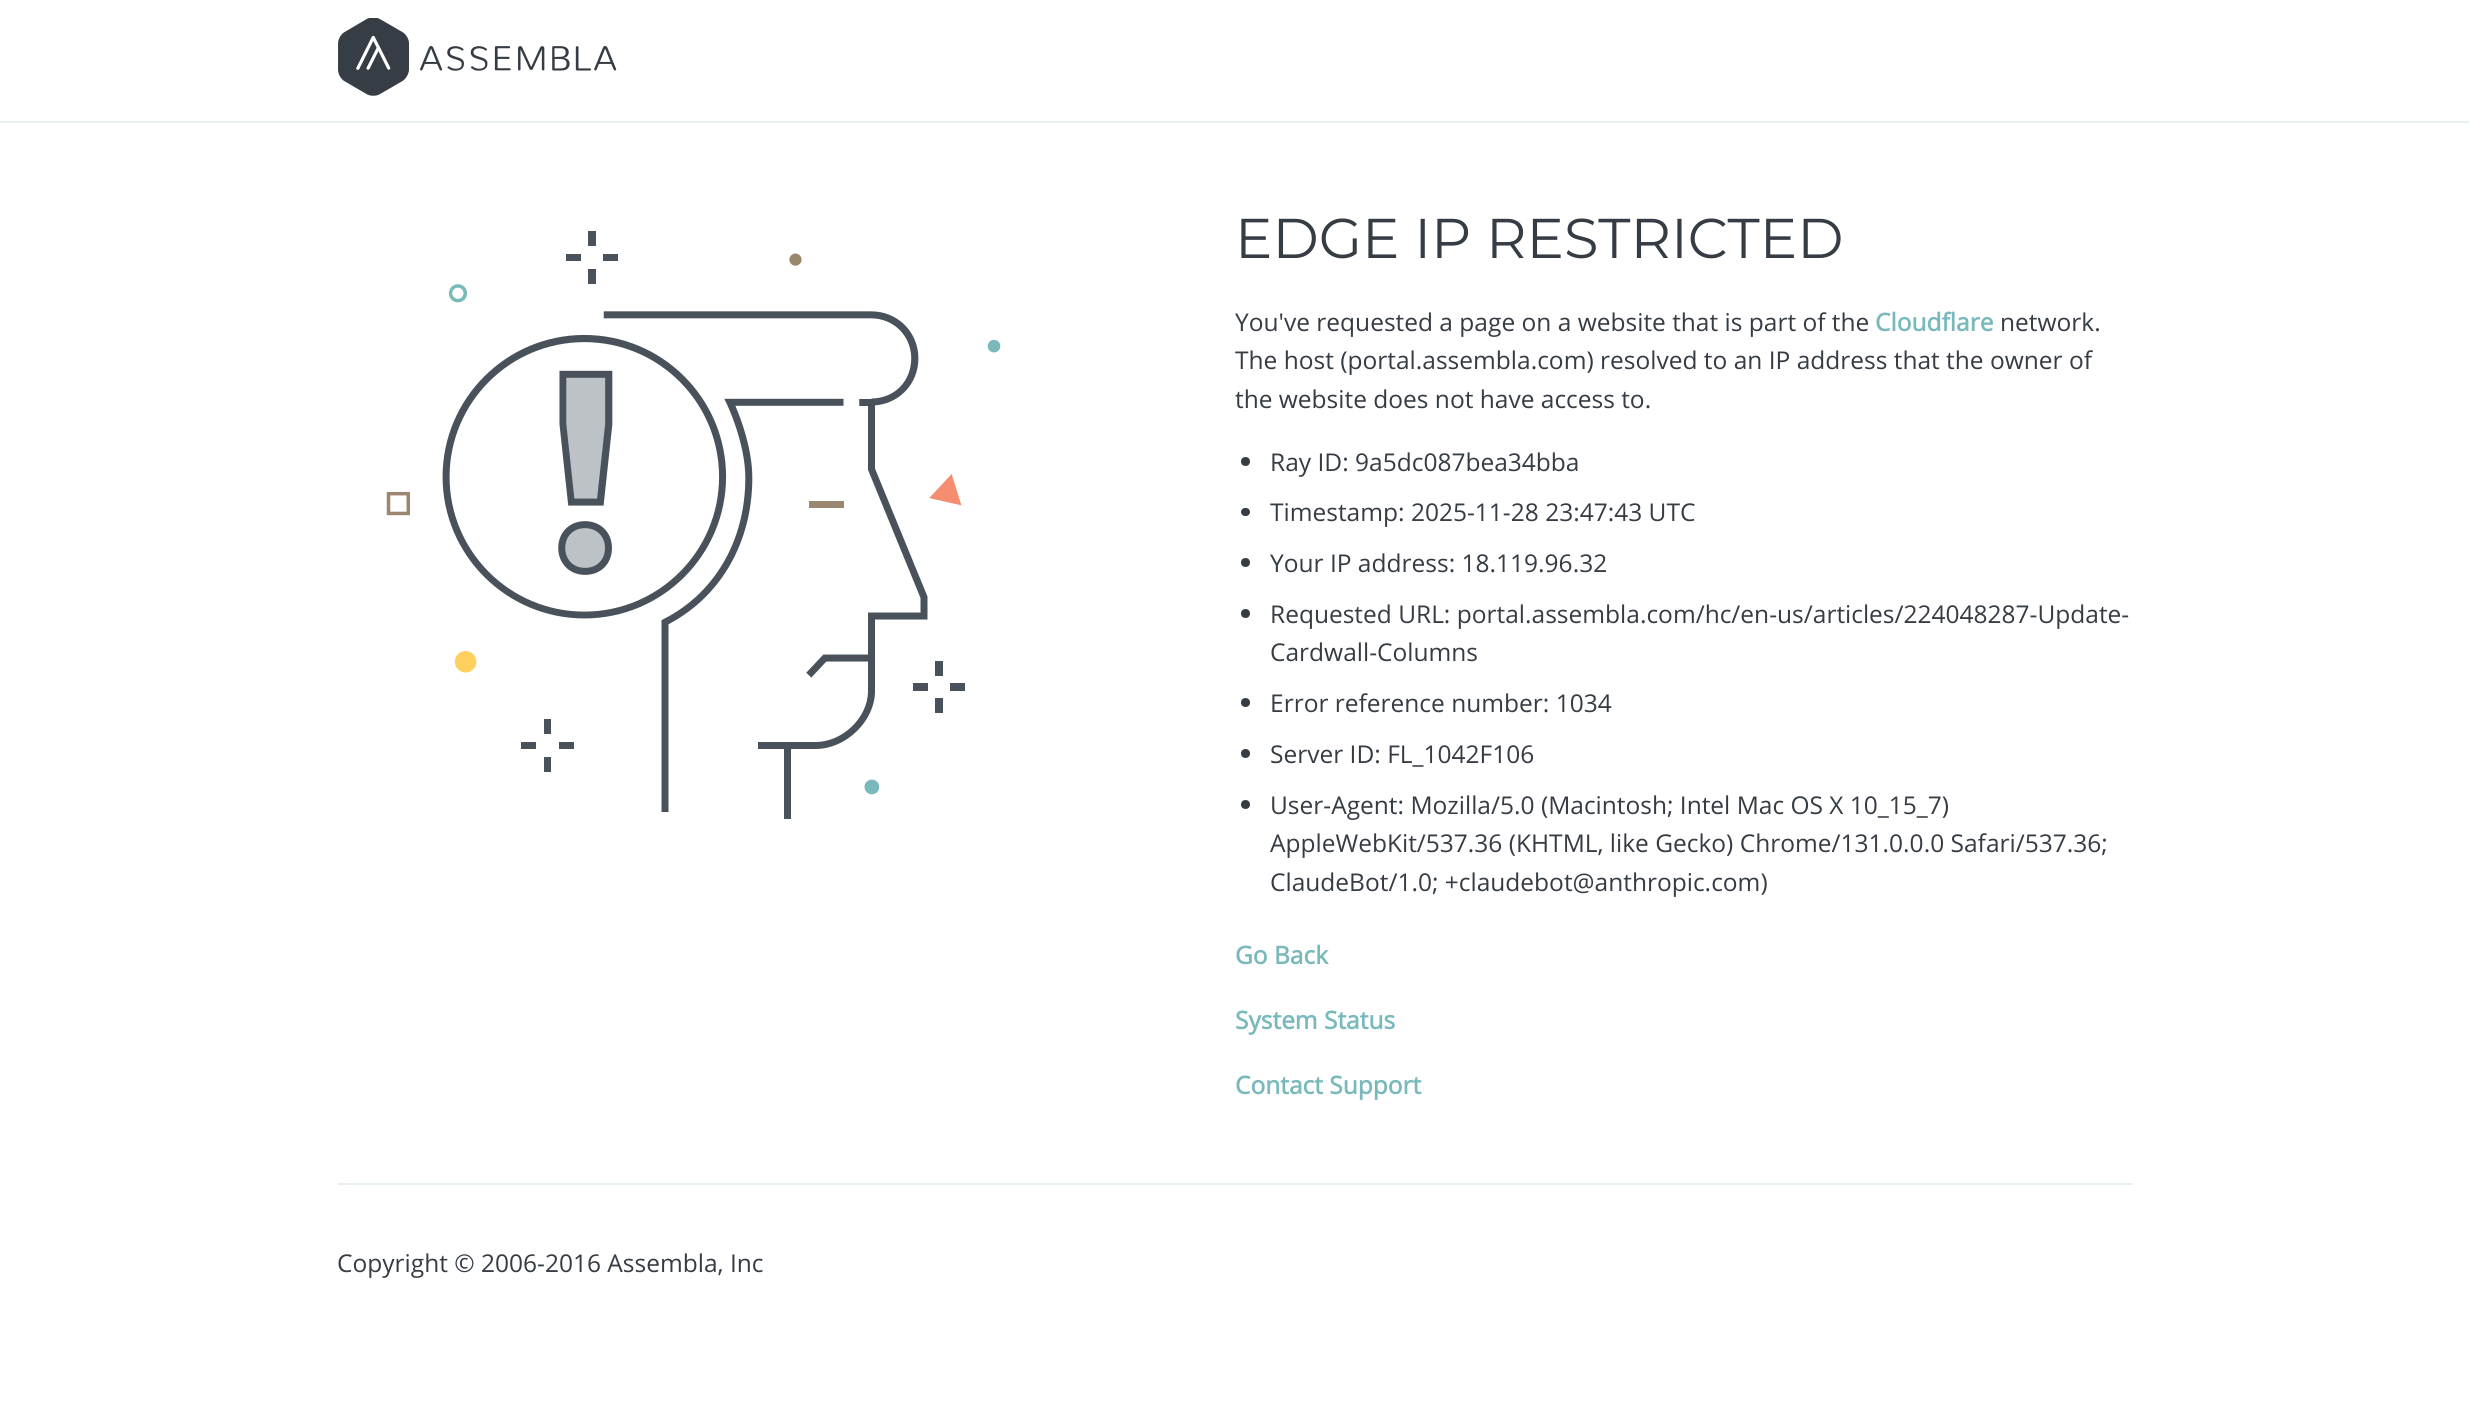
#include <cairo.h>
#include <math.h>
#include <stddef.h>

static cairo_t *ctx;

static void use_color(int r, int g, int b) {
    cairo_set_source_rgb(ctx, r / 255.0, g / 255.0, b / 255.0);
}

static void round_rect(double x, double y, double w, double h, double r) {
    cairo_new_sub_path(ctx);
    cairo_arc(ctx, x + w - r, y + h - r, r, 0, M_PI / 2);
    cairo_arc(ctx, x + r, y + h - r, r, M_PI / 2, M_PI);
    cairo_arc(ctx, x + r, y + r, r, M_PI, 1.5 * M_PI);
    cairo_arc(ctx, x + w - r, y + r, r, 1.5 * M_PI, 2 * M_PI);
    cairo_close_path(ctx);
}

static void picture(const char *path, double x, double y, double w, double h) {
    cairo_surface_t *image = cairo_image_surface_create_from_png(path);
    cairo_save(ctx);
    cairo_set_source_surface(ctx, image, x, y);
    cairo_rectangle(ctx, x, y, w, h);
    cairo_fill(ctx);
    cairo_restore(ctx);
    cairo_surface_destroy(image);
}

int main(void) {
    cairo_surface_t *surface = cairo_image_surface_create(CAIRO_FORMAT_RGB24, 2469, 1422);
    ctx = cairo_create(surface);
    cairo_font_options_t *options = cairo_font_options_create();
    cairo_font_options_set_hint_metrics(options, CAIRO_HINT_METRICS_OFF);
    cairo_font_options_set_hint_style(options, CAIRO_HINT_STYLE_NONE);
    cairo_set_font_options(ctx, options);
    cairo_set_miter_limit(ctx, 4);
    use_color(255, 255, 255);
    cairo_paint(ctx);
    use_color(232, 240, 242);
    cairo_rectangle(ctx, 0, 121, 2469, 2);
    cairo_fill(ctx);
    picture("img1.png", 338, 18, 279, 78);
    picture("img2.png", 386, 231, 615, 588);
    cairo_select_font_face(ctx, "Montserrat", CAIRO_FONT_SLANT_NORMAL, CAIRO_FONT_WEIGHT_NORMAL);
    cairo_set_font_size(ctx, 56);
    use_color(54, 60, 68);
    cairo_move_to(ctx, 1235, 258);
    cairo_show_text(ctx, "EDGE IP RESTRICTED");
    cairo_select_font_face(ctx, "Open Sans", CAIRO_FONT_SLANT_NORMAL, CAIRO_FONT_WEIGHT_NORMAL);
    cairo_set_font_size(ctx, 24.5);
    cairo_move_to(ctx, 1235, 331);
    cairo_show_text(ctx, "You've requested a page on a website that is part of the");
    cairo_select_font_face(ctx, "Open Sans", CAIRO_FONT_SLANT_NORMAL, CAIRO_FONT_WEIGHT_BOLD);
    use_color(121, 185, 188);
    cairo_move_to(ctx, 1875, 331);
    cairo_show_text(ctx, "Cloudflare");
    cairo_select_font_face(ctx, "Open Sans", CAIRO_FONT_SLANT_NORMAL, CAIRO_FONT_WEIGHT_NORMAL);
    use_color(54, 60, 68);
    cairo_move_to(ctx, 2000, 331);
    cairo_show_text(ctx, "network.");
    cairo_move_to(ctx, 1235, 369);
    cairo_show_text(ctx, "The host (portal.assembla.com) resolved to an IP address that the owner of");
    cairo_move_to(ctx, 1235, 408);
    cairo_show_text(ctx, "the website does not have access to.");
    cairo_new_path(ctx);
    cairo_arc(ctx, 1245.5, 461.5, 4.5, 0, 2 * M_PI);
    cairo_fill(ctx);
    cairo_move_to(ctx, 1270, 471);
    cairo_show_text(ctx, "Ray ID: 9a5dc087bea34bba");
    round_rect(1241, 508, 9, 8, 4);
    cairo_fill(ctx);
    cairo_move_to(ctx, 1270, 521);
    cairo_show_text(ctx, "Timestamp: 2025-11-28 23:47:43 UTC");
    cairo_new_path(ctx);
    cairo_arc(ctx, 1245.5, 562.5, 4.5, 0, 2 * M_PI);
    cairo_fill(ctx);
    cairo_move_to(ctx, 1270, 572);
    cairo_show_text(ctx, "Your IP address: 18.119.96.32");
    cairo_new_path(ctx);
    cairo_arc(ctx, 1245.5, 613.5, 4.5, 0, 2 * M_PI);
    cairo_fill(ctx);
    cairo_move_to(ctx, 1270, 623);
    cairo_show_text(ctx, "Requested URL: portal.assembla.com/hc/en-us/articles/224048287-Update-");
    cairo_move_to(ctx, 1270, 661);
    cairo_show_text(ctx, "Cardwall-Columns");
    cairo_new_path(ctx);
    cairo_arc(ctx, 1245.5, 702.5, 4.5, 0, 2 * M_PI);
    cairo_fill(ctx);
    cairo_move_to(ctx, 1270, 712);
    cairo_show_text(ctx, "Error reference number: 1034");
    cairo_new_path(ctx);
    cairo_arc(ctx, 1245.5, 753.5, 4.5, 0, 2 * M_PI);
    cairo_fill(ctx);
    cairo_move_to(ctx, 1270, 763);
    cairo_show_text(ctx, "Server ID: FL_1042F106");
    cairo_new_path(ctx);
    cairo_arc(ctx, 1245.5, 804.5, 4.5, 0, 2 * M_PI);
    cairo_fill(ctx);
    cairo_move_to(ctx, 1270, 814);
    cairo_show_text(ctx, "User-Agent: Mozilla/5.0 (Macintosh; Intel Mac OS X 10_15_7)");
    cairo_move_to(ctx, 1270, 852);
    cairo_show_text(ctx, "AppleWebKit/537.36 (KHTML, like Gecko) Chrome/131.0.0.0 Safari/537.36;");
    cairo_move_to(ctx, 1270, 891);
    cairo_show_text(ctx, "ClaudeBot/1.0; +claudebot@anthropic.com)");
    cairo_select_font_face(ctx, "Open Sans", CAIRO_FONT_SLANT_NORMAL, CAIRO_FONT_WEIGHT_BOLD);
    use_color(121, 185, 188);
    cairo_move_to(ctx, 1235, 964);
    cairo_show_text(ctx, "Go Back");
    cairo_move_to(ctx, 1235, 1029);
    cairo_show_text(ctx, "System Status");
    cairo_move_to(ctx, 1235, 1094);
    cairo_show_text(ctx, "Contact Support");
    use_color(232, 240, 242);
    cairo_rectangle(ctx, 338, 1183, 1795, 2);
    cairo_fill(ctx);
    cairo_select_font_face(ctx, "Open Sans", CAIRO_FONT_SLANT_NORMAL, CAIRO_FONT_WEIGHT_NORMAL);
    use_color(54, 60, 68);
    cairo_move_to(ctx, 337, 1272);
    cairo_show_text(ctx, "Copyright © 2006-2016 Assembla, Inc");
    cairo_surface_write_to_png(surface, "result.png");
    cairo_font_options_destroy(options);
    cairo_destroy(ctx);
    cairo_surface_destroy(surface);
    return 0;
}
